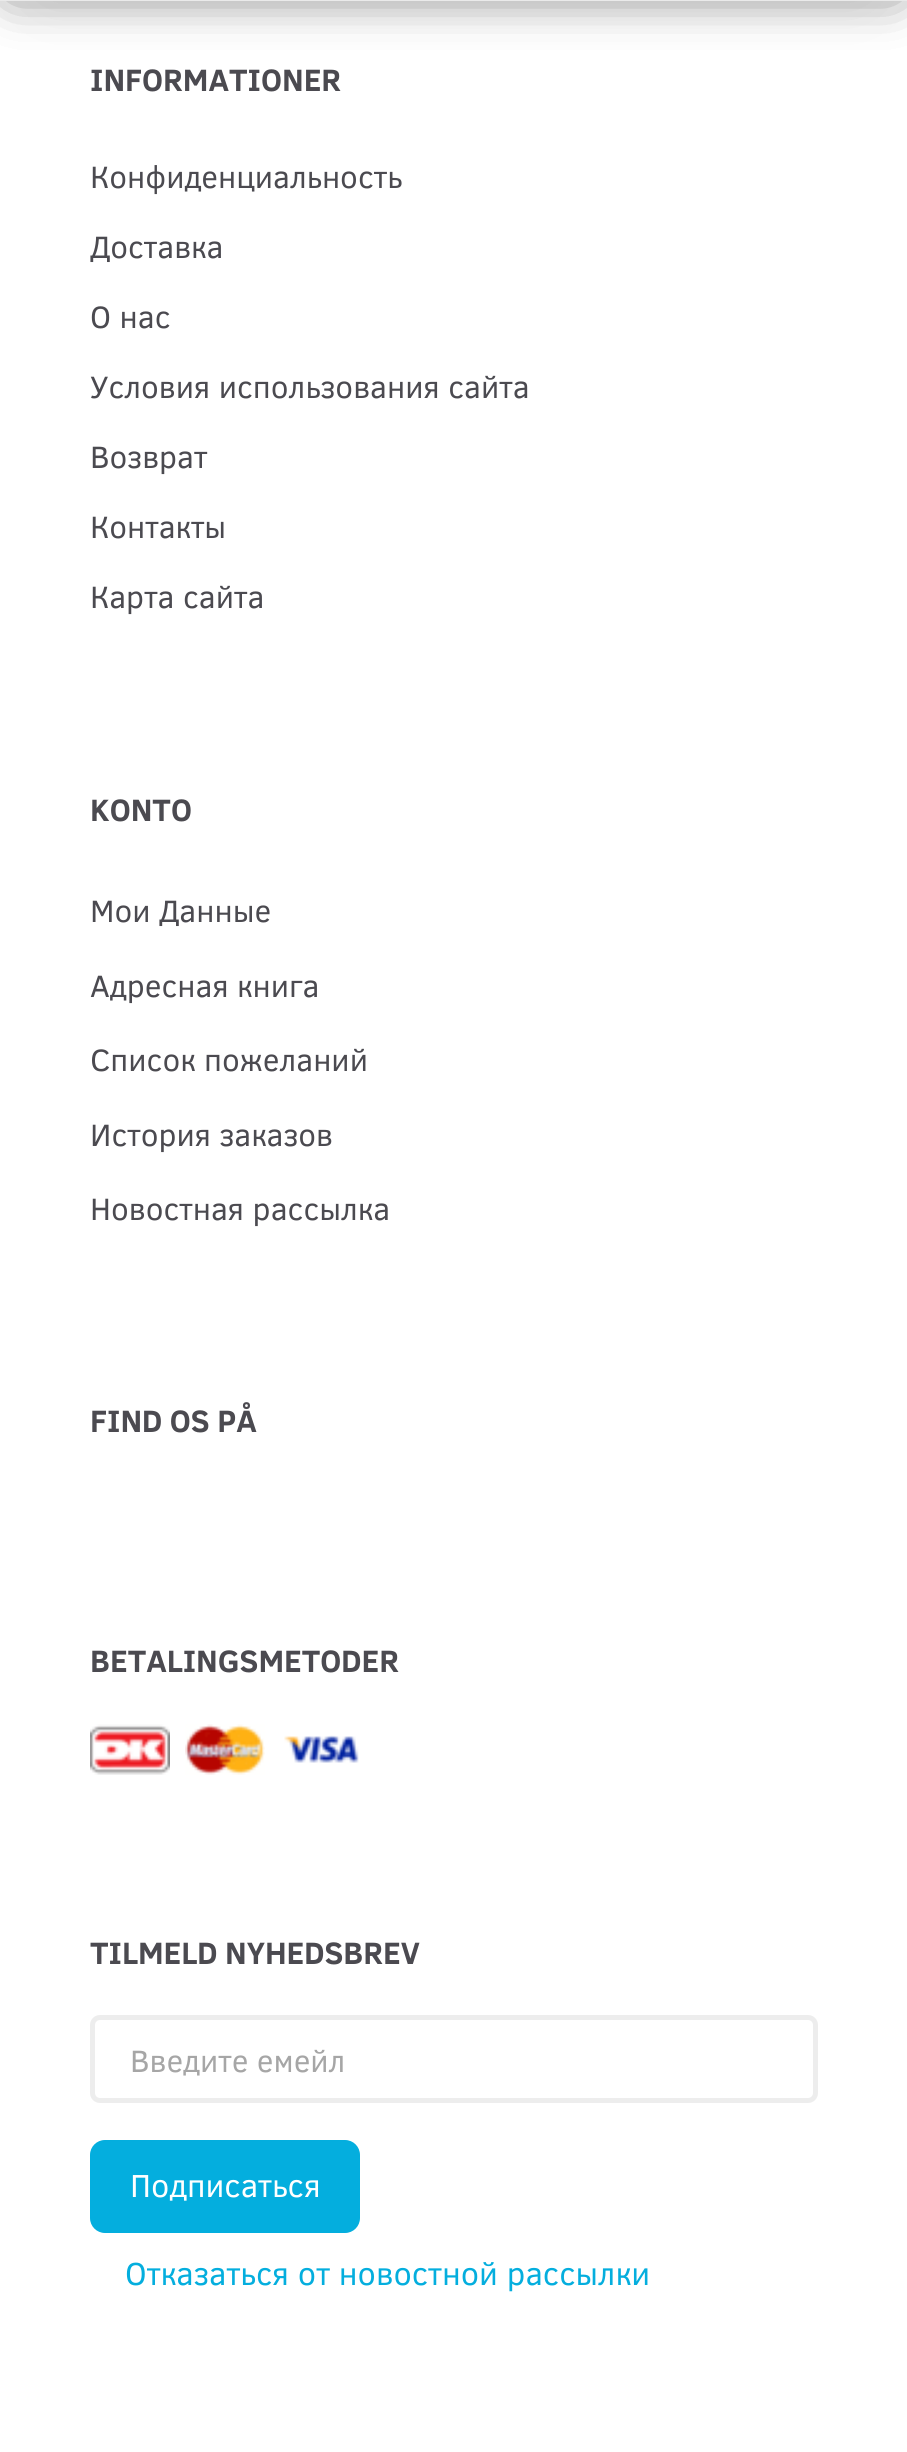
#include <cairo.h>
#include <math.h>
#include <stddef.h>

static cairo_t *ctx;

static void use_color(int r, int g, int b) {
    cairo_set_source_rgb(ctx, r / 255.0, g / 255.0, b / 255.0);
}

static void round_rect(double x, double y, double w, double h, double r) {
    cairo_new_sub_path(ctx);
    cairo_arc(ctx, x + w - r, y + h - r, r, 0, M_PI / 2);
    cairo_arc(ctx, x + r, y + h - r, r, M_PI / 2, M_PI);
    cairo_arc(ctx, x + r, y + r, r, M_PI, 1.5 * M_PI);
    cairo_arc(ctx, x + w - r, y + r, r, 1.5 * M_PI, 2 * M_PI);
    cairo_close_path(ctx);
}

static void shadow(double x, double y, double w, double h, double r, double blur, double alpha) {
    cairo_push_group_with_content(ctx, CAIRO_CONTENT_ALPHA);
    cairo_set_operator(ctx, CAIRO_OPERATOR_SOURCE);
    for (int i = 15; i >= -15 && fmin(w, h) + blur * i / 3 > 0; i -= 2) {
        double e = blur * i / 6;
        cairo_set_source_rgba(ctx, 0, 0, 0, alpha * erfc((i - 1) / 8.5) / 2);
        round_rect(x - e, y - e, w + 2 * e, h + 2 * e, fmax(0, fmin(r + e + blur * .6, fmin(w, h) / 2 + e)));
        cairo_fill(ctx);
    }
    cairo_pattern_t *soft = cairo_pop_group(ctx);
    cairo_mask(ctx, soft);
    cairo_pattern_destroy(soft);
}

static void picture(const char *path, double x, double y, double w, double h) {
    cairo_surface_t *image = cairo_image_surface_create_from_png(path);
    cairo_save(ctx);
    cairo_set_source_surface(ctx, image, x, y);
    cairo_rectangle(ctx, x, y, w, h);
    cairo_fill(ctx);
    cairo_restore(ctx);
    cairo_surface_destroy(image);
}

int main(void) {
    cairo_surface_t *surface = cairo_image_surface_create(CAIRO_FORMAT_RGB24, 907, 2452);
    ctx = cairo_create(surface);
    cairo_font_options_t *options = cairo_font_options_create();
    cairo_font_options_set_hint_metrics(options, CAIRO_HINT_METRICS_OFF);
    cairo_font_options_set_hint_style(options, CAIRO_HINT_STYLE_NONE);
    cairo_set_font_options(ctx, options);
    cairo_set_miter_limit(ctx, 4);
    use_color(255, 255, 255);
    cairo_paint(ctx);
    use_color(148, 148, 148);
    shadow(13, -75, 882, 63, 0, 25, 1);
    shadow(13, -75, 882, 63, 0, 25, 1);
    use_color(184, 184, 184);
    shadow(50, -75, 808, 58, 0, 25, 1);
    use_color(234, 234, 234);
    cairo_rectangle(ctx, 0, 0, 907, 1);
    cairo_fill(ctx);
    cairo_select_font_face(ctx, "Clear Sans", CAIRO_FONT_SLANT_NORMAL, CAIRO_FONT_WEIGHT_BOLD);
    cairo_set_font_size(ctx, 31.5);
    use_color(75, 74, 80);
    cairo_move_to(ctx, 90, 91);
    cairo_show_text(ctx, "INFORMATIONER");
    cairo_select_font_face(ctx, "Clear Sans", CAIRO_FONT_SLANT_NORMAL, CAIRO_FONT_WEIGHT_NORMAL);
    cairo_move_to(ctx, 90, 188);
    cairo_show_text(ctx, "Конфиденциальность");
    cairo_move_to(ctx, 90, 258);
    cairo_show_text(ctx, "Доставка");
    cairo_move_to(ctx, 90, 328);
    cairo_show_text(ctx, "О нас");
    cairo_move_to(ctx, 90, 398);
    cairo_show_text(ctx, "Условия использования сайта");
    cairo_move_to(ctx, 90, 468);
    cairo_show_text(ctx, "Возврат");
    cairo_move_to(ctx, 90, 538);
    cairo_show_text(ctx, "Контакты");
    cairo_move_to(ctx, 90, 608);
    cairo_show_text(ctx, "Карта сайта");
    cairo_select_font_face(ctx, "Clear Sans", CAIRO_FONT_SLANT_NORMAL, CAIRO_FONT_WEIGHT_BOLD);
    cairo_move_to(ctx, 90, 821);
    cairo_show_text(ctx, "KONTO");
    cairo_select_font_face(ctx, "Clear Sans", CAIRO_FONT_SLANT_NORMAL, CAIRO_FONT_WEIGHT_NORMAL);
    cairo_move_to(ctx, 90, 922);
    cairo_show_text(ctx, "Мои Данные");
    cairo_move_to(ctx, 90, 997);
    cairo_show_text(ctx, "Адресная книга");
    cairo_move_to(ctx, 90, 1071);
    cairo_show_text(ctx, "Список пожеланий");
    cairo_move_to(ctx, 90, 1146);
    cairo_show_text(ctx, "История заказов");
    cairo_move_to(ctx, 90, 1220);
    cairo_show_text(ctx, "Новостная рассылка");
    cairo_select_font_face(ctx, "Clear Sans", CAIRO_FONT_SLANT_NORMAL, CAIRO_FONT_WEIGHT_BOLD);
    cairo_move_to(ctx, 90, 1432);
    cairo_show_text(ctx, "FIND OS PÅ");
    cairo_move_to(ctx, 90, 1672);
    cairo_show_text(ctx, "BETALINGSMETODER");
    picture("img1.png", 90, 1724, 80, 51);
    picture("img2.png", 185, 1724, 80, 51);
    picture("img3.png", 284, 1735, 75, 28);
    cairo_move_to(ctx, 90, 1964);
    cairo_show_text(ctx, "TILMELD NYHEDSBREV");
    round_rect(92.5, 2017.5, 723, 83, 7.5);
    use_color(237, 237, 237);
    cairo_set_line_width(ctx, 5);
    cairo_stroke(ctx);
    cairo_select_font_face(ctx, "Clear Sans", CAIRO_FONT_SLANT_NORMAL, CAIRO_FONT_WEIGHT_NORMAL);
    use_color(166, 166, 166);
    cairo_move_to(ctx, 130, 2072);
    cairo_show_text(ctx, "Введите емейл");
    use_color(4, 174, 222);
    round_rect(90, 2140, 270, 93, 15);
    cairo_fill(ctx);
    cairo_set_font_size(ctx, 32.5);
    use_color(255, 255, 255);
    cairo_move_to(ctx, 130, 2197);
    cairo_show_text(ctx, "Подписаться");
    use_color(4, 174, 222);
    cairo_move_to(ctx, 125, 2285);
    cairo_show_text(ctx, "Отказаться от новостной рассылки");
    cairo_surface_write_to_png(surface, "result.png");
    cairo_font_options_destroy(options);
    cairo_destroy(ctx);
    cairo_surface_destroy(surface);
    return 0;
}
